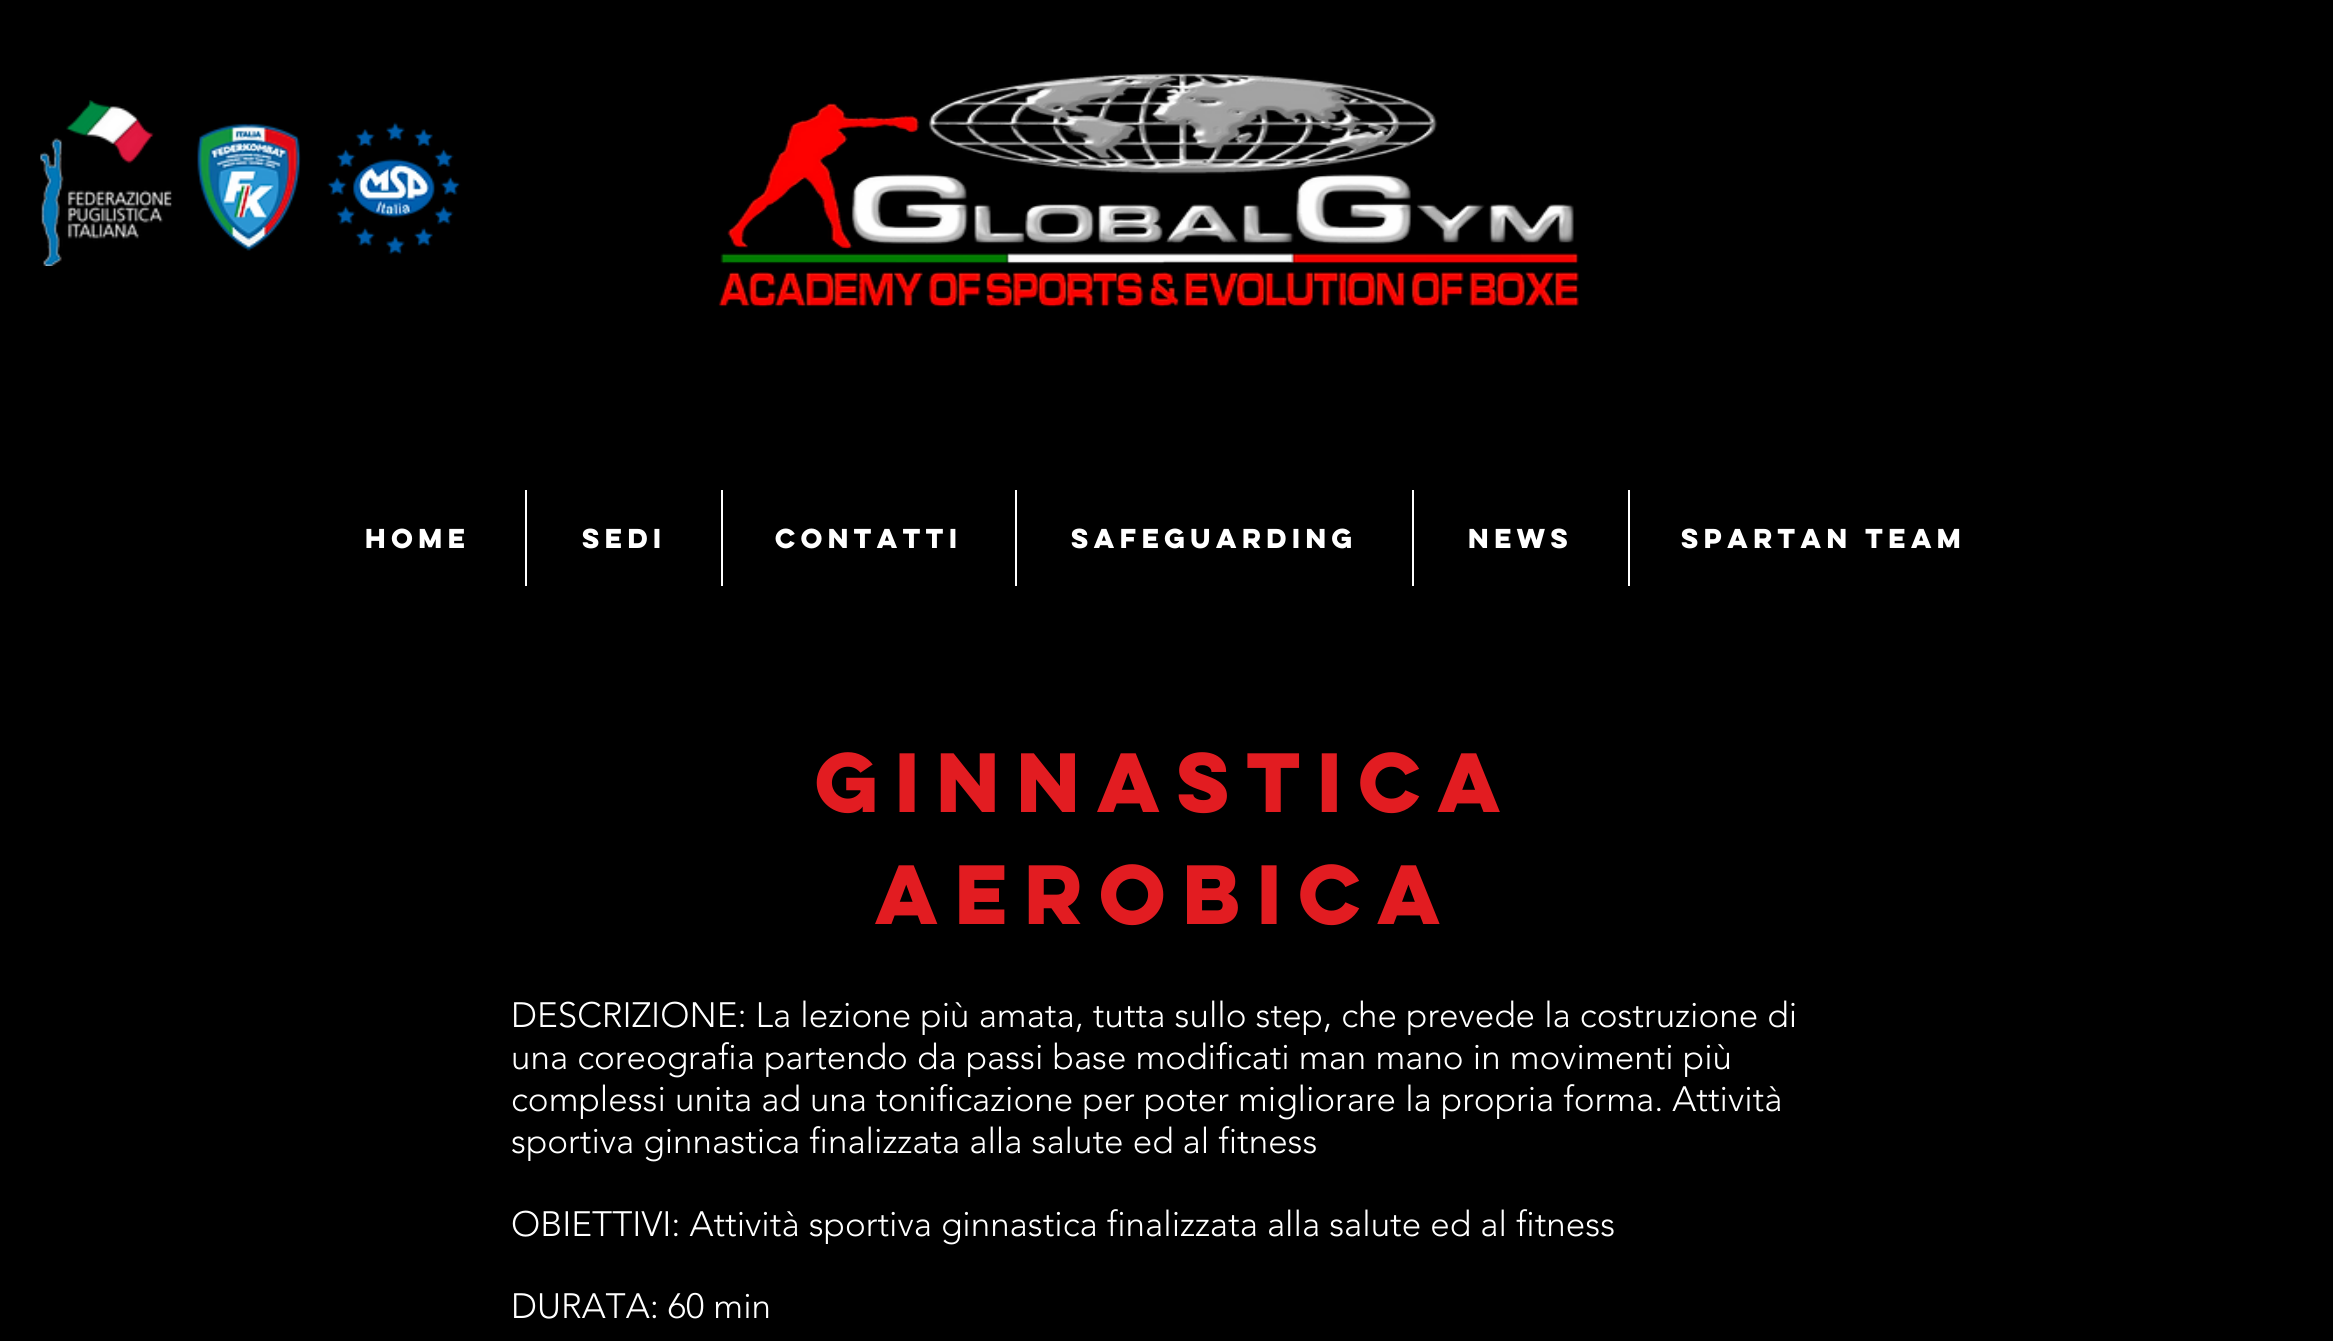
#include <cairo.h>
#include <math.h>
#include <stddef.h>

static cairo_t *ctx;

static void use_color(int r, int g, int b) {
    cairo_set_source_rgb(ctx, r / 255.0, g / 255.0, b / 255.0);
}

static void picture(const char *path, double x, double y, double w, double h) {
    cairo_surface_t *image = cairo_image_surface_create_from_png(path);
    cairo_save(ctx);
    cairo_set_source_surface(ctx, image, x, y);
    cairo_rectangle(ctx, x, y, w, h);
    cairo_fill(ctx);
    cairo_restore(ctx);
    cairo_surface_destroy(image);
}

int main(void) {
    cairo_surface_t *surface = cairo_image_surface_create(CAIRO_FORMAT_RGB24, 2333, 1341);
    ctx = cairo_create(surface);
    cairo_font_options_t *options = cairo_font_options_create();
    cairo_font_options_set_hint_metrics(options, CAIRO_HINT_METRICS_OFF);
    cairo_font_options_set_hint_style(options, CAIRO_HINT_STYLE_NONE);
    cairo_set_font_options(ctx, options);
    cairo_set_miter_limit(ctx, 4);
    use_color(0, 0, 0);
    cairo_paint(ctx);
    picture("img1.png", 40, 100, 132, 166);
    picture("img2.png", 197, 123, 104, 128);
    picture("img3.png", 327, 122, 134, 133);
    picture("img4.png", 718, 72, 861, 235);
    cairo_select_font_face(ctx, "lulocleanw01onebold", CAIRO_FONT_SLANT_NORMAL, CAIRO_FONT_WEIGHT_BOLD);
    cairo_set_font_size(ctx, 24.5);
    use_color(255, 255, 255);
    cairo_move_to(ctx, 365, 548);
    cairo_show_text(ctx, "HOME");
    cairo_rectangle(ctx, 525, 490, 2, 96);
    cairo_fill(ctx);
    cairo_move_to(ctx, 582, 548);
    cairo_show_text(ctx, "SEDI");
    cairo_rectangle(ctx, 721, 490, 2, 96);
    cairo_fill(ctx);
    cairo_move_to(ctx, 775, 548);
    cairo_show_text(ctx, "CONTATTI");
    cairo_rectangle(ctx, 1015, 490, 2, 96);
    cairo_fill(ctx);
    cairo_move_to(ctx, 1071, 548);
    cairo_show_text(ctx, "SAFEGUARDING");
    cairo_rectangle(ctx, 1412, 490, 2, 96);
    cairo_fill(ctx);
    cairo_move_to(ctx, 1468, 548);
    cairo_show_text(ctx, "News");
    cairo_rectangle(ctx, 1628, 490, 2, 96);
    cairo_fill(ctx);
    cairo_move_to(ctx, 1681, 548);
    cairo_show_text(ctx, "Spartan Team");
    cairo_set_font_size(ctx, 75.25);
    use_color(226, 28, 33);
    cairo_move_to(ctx, 815, 812);
    cairo_show_text(ctx, "GINNASTICA");
    cairo_move_to(ctx, 875, 924);
    cairo_show_text(ctx, "AEROBICA");
    cairo_select_font_face(ctx, "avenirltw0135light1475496 Light", CAIRO_FONT_SLANT_NORMAL, CAIRO_FONT_WEIGHT_NORMAL);
    cairo_set_font_size(ctx, 35);
    use_color(255, 255, 255);
    cairo_move_to(ctx, 511, 1027);
    cairo_show_text(ctx, "DESCRIZIONE: La lezione più amata, tutta sullo step, che prevede la costruzione di");
    cairo_move_to(ctx, 511, 1069);
    cairo_show_text(ctx, "una coreografia partendo da passi base modificati man mano in movimenti più");
    cairo_move_to(ctx, 511, 1111);
    cairo_show_text(ctx, "complessi unita ad una tonificazione per poter migliorare la propria forma. Attività");
    cairo_move_to(ctx, 511, 1153);
    cairo_show_text(ctx, "sportiva ginnastica finalizzata alla salute ed al fitness");
    cairo_move_to(ctx, 511, 1236);
    cairo_show_text(ctx, "OBIETTIVI: Attività sportiva ginnastica finalizzata alla salute ed al fitness");
    cairo_move_to(ctx, 511, 1318);
    cairo_show_text(ctx, "DURATA: 60 min");
    cairo_surface_write_to_png(surface, "result.png");
    cairo_font_options_destroy(options);
    cairo_destroy(ctx);
    cairo_surface_destroy(surface);
    return 0;
}
